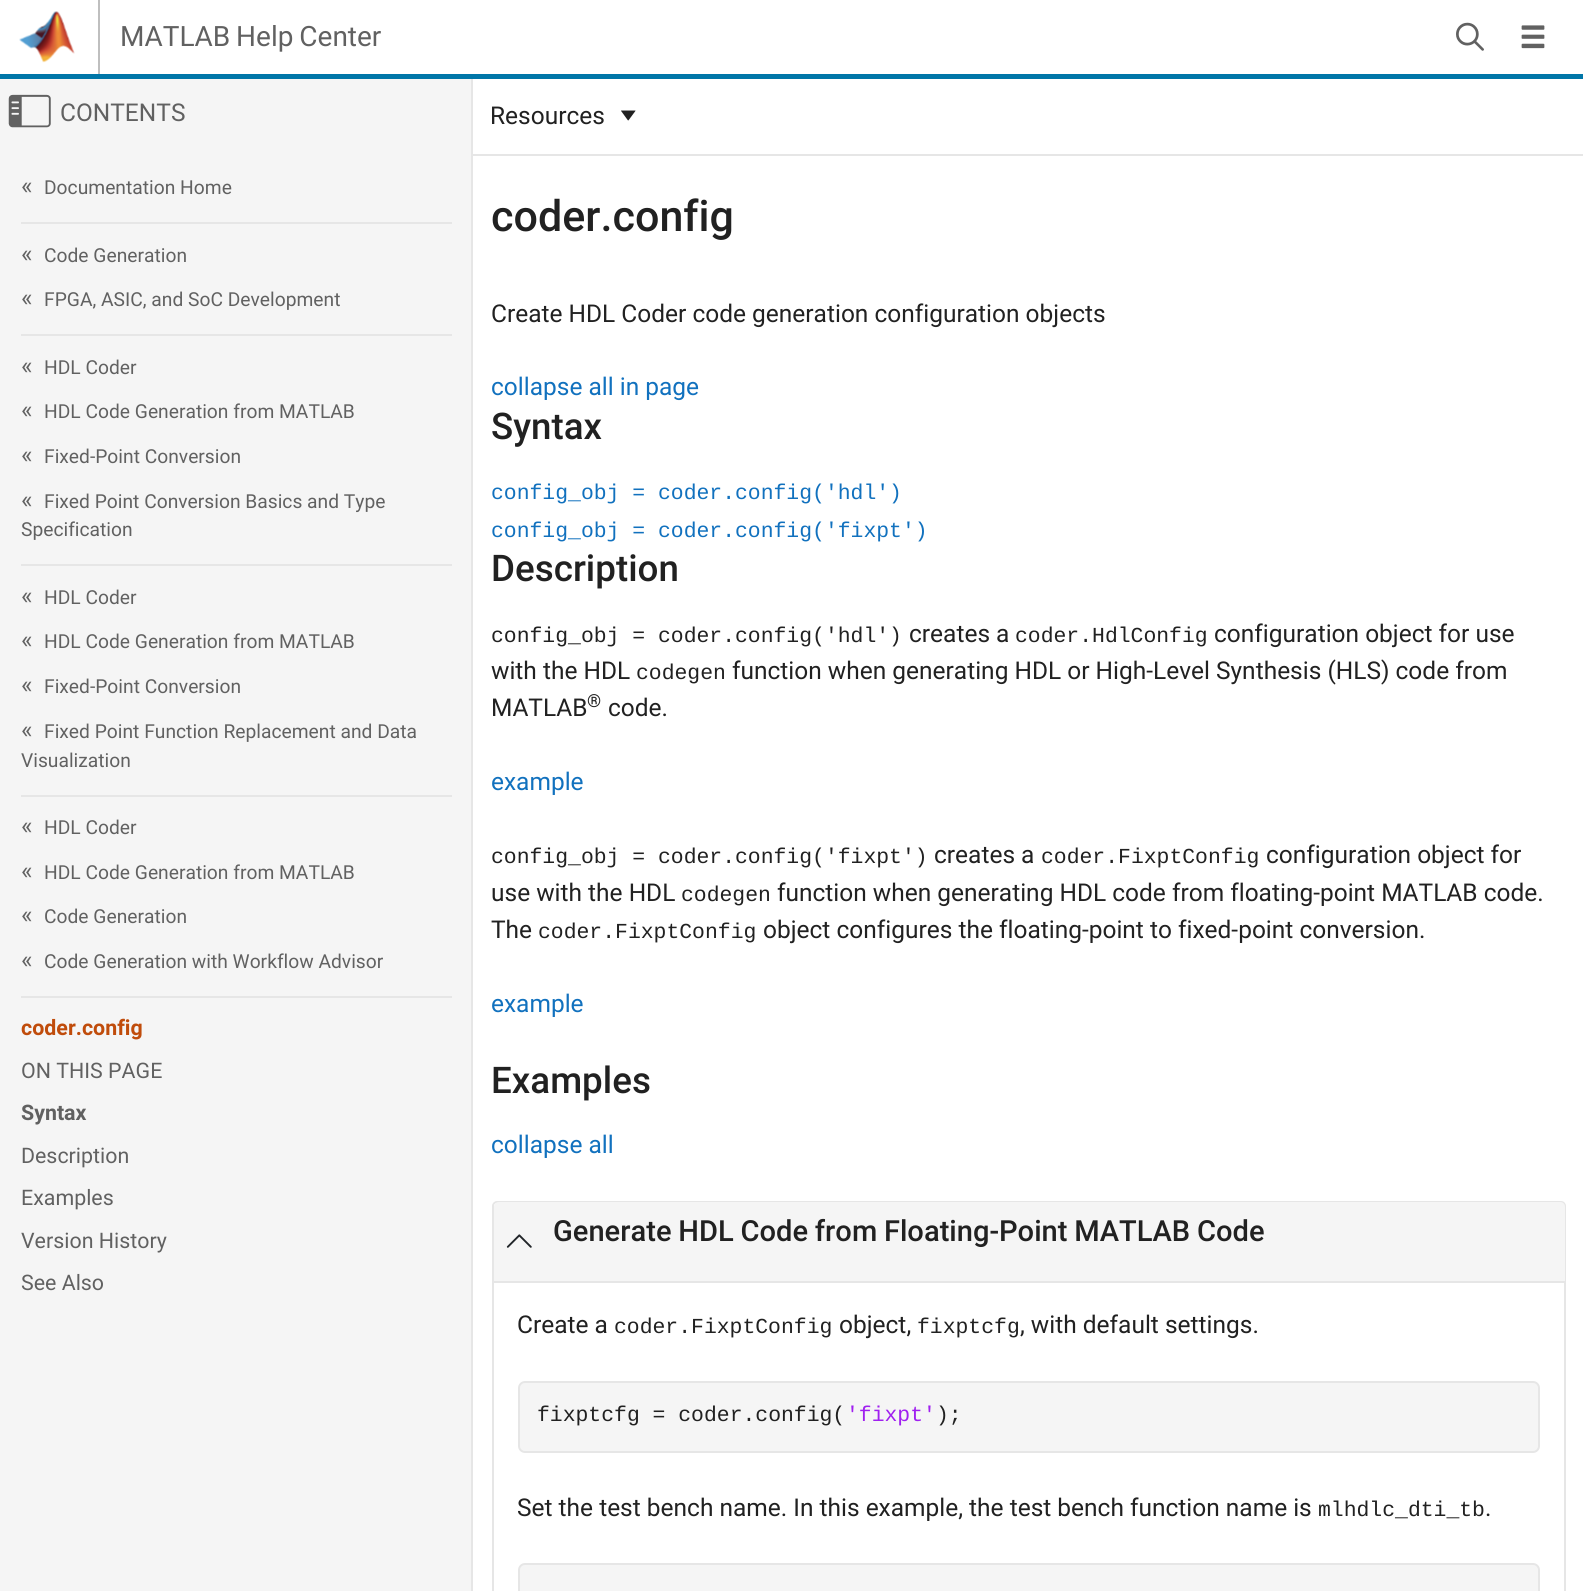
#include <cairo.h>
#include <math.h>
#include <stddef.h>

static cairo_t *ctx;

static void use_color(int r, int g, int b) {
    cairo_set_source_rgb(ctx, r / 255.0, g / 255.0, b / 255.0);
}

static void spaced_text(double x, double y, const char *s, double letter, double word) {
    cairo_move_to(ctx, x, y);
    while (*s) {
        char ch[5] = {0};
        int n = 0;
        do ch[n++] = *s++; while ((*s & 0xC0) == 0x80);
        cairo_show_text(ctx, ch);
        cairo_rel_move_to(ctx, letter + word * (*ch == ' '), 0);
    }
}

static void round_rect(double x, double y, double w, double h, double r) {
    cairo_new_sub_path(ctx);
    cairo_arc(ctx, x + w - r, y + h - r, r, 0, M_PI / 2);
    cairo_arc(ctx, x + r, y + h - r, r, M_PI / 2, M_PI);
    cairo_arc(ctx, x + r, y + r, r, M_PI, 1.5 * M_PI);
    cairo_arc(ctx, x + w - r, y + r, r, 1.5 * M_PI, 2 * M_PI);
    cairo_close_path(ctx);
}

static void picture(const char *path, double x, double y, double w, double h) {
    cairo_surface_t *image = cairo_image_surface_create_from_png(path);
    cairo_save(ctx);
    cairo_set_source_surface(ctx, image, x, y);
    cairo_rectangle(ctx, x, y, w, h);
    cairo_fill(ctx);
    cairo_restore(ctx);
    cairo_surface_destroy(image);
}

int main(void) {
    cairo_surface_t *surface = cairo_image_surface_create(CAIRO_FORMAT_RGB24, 1583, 1591);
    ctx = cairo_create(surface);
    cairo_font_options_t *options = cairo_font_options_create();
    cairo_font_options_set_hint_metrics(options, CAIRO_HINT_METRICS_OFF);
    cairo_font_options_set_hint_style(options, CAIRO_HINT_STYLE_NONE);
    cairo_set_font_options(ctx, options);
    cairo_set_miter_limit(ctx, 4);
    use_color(245, 245, 245);
    cairo_paint(ctx);
    use_color(255, 255, 255);
    cairo_rectangle(ctx, 0, 0, 1583, 74);
    cairo_fill(ctx);
    use_color(0, 118, 168);
    cairo_rectangle(ctx, 0, 74, 1583, 5);
    cairo_fill(ctx);
    use_color(191, 191, 191);
    cairo_rectangle(ctx, 98, 0, 2, 74);
    cairo_fill(ctx);
    picture("img1.png", 19, 11, 56, 52);
    cairo_select_font_face(ctx, "Roboto", CAIRO_FONT_SLANT_NORMAL, CAIRO_FONT_WEIGHT_NORMAL);
    cairo_set_font_size(ctx, 28);
    use_color(97, 97, 97);
    spaced_text(120, 46, "MATLAB Help Center", 0, -1);
    picture("img2.png", 1456, 22, 28, 29);
    picture("img3.png", 1521, 25, 24, 24);
    use_color(230, 230, 230);
    cairo_rectangle(ctx, 471, 79, 2, 1512);
    cairo_fill(ctx);
    picture("img4.png", 8, 94, 43, 34);
    cairo_set_font_size(ctx, 24.5);
    use_color(97, 97, 97);
    cairo_move_to(ctx, 60, 121);
    cairo_show_text(ctx, "CONTENTS");
    use_color(230, 230, 230);
    cairo_rectangle(ctx, 21, 222, 431, 2);
    cairo_fill(ctx);
    use_color(97, 97, 97);
    cairo_move_to(ctx, 21, 194);
    cairo_show_text(ctx, "«");
    cairo_set_font_size(ctx, 19.25);
    cairo_move_to(ctx, 44, 194);
    cairo_show_text(ctx, "Documentation Home");
    use_color(230, 230, 230);
    cairo_rectangle(ctx, 21, 334, 431, 2);
    cairo_fill(ctx);
    cairo_set_font_size(ctx, 24.5);
    use_color(97, 97, 97);
    cairo_move_to(ctx, 21, 262);
    cairo_show_text(ctx, "«");
    cairo_set_font_size(ctx, 19.25);
    cairo_move_to(ctx, 44, 262);
    cairo_show_text(ctx, "Code Generation");
    cairo_set_font_size(ctx, 24.5);
    cairo_move_to(ctx, 21, 306);
    cairo_show_text(ctx, "«");
    cairo_set_font_size(ctx, 19.25);
    cairo_move_to(ctx, 44, 306);
    cairo_show_text(ctx, "FPGA, ASIC, and SoC Development");
    use_color(230, 230, 230);
    cairo_rectangle(ctx, 21, 564, 431, 2);
    cairo_fill(ctx);
    cairo_set_font_size(ctx, 24.5);
    use_color(97, 97, 97);
    cairo_move_to(ctx, 21, 374);
    cairo_show_text(ctx, "«");
    cairo_set_font_size(ctx, 19.25);
    cairo_move_to(ctx, 44, 374);
    cairo_show_text(ctx, "HDL Coder");
    cairo_set_font_size(ctx, 24.5);
    cairo_move_to(ctx, 21, 418);
    cairo_show_text(ctx, "«");
    cairo_set_font_size(ctx, 19.25);
    cairo_move_to(ctx, 44, 418);
    cairo_show_text(ctx, "HDL Code Generation from MATLAB");
    cairo_set_font_size(ctx, 24.5);
    cairo_move_to(ctx, 21, 463);
    cairo_show_text(ctx, "«");
    cairo_set_font_size(ctx, 19.25);
    cairo_move_to(ctx, 44, 463);
    cairo_show_text(ctx, "Fixed-Point Conversion");
    cairo_set_font_size(ctx, 24.5);
    cairo_move_to(ctx, 21, 508);
    cairo_show_text(ctx, "«");
    cairo_set_font_size(ctx, 19.25);
    cairo_move_to(ctx, 44, 508);
    cairo_show_text(ctx, "Fixed Point Conversion Basics and Type");
    cairo_move_to(ctx, 21, 536);
    cairo_show_text(ctx, "Specification");
    use_color(230, 230, 230);
    cairo_rectangle(ctx, 21, 795, 431, 2);
    cairo_fill(ctx);
    cairo_set_font_size(ctx, 24.5);
    use_color(97, 97, 97);
    cairo_move_to(ctx, 21, 604);
    cairo_show_text(ctx, "«");
    cairo_set_font_size(ctx, 19.25);
    cairo_move_to(ctx, 44, 604);
    cairo_show_text(ctx, "HDL Coder");
    cairo_set_font_size(ctx, 24.5);
    cairo_move_to(ctx, 21, 648);
    cairo_show_text(ctx, "«");
    cairo_set_font_size(ctx, 19.25);
    cairo_move_to(ctx, 44, 648);
    cairo_show_text(ctx, "HDL Code Generation from MATLAB");
    cairo_set_font_size(ctx, 24.5);
    cairo_move_to(ctx, 21, 693);
    cairo_show_text(ctx, "«");
    cairo_set_font_size(ctx, 19.25);
    cairo_move_to(ctx, 44, 693);
    cairo_show_text(ctx, "Fixed-Point Conversion");
    cairo_set_font_size(ctx, 24.5);
    cairo_move_to(ctx, 21, 738);
    cairo_show_text(ctx, "«");
    cairo_set_font_size(ctx, 19.25);
    cairo_move_to(ctx, 44, 738);
    cairo_show_text(ctx, "Fixed Point Function Replacement and Data");
    cairo_move_to(ctx, 21, 767);
    cairo_show_text(ctx, "Visualization");
    use_color(230, 230, 230);
    cairo_rectangle(ctx, 21, 996, 431, 2);
    cairo_fill(ctx);
    cairo_set_font_size(ctx, 24.5);
    use_color(97, 97, 97);
    cairo_move_to(ctx, 21, 834);
    cairo_show_text(ctx, "«");
    cairo_set_font_size(ctx, 19.25);
    cairo_move_to(ctx, 44, 834);
    cairo_show_text(ctx, "HDL Coder");
    cairo_set_font_size(ctx, 24.5);
    cairo_move_to(ctx, 21, 879);
    cairo_show_text(ctx, "«");
    cairo_set_font_size(ctx, 19.25);
    cairo_move_to(ctx, 44, 879);
    cairo_show_text(ctx, "HDL Code Generation from MATLAB");
    cairo_set_font_size(ctx, 24.5);
    cairo_move_to(ctx, 21, 923);
    cairo_show_text(ctx, "«");
    cairo_set_font_size(ctx, 19.25);
    cairo_move_to(ctx, 44, 923);
    cairo_show_text(ctx, "Code Generation");
    cairo_set_font_size(ctx, 24.5);
    cairo_move_to(ctx, 21, 968);
    cairo_show_text(ctx, "«");
    cairo_set_font_size(ctx, 19.25);
    cairo_move_to(ctx, 44, 968);
    cairo_show_text(ctx, "Code Generation with Workflow Advisor");
    cairo_select_font_face(ctx, "Roboto", CAIRO_FONT_SLANT_NORMAL, CAIRO_FONT_WEIGHT_BOLD);
    cairo_set_font_size(ctx, 21.4);
    use_color(192, 76, 11);
    cairo_move_to(ctx, 21, 1035);
    cairo_show_text(ctx, "coder.config");
    cairo_select_font_face(ctx, "Roboto", CAIRO_FONT_SLANT_NORMAL, CAIRO_FONT_WEIGHT_NORMAL);
    use_color(97, 97, 97);
    cairo_move_to(ctx, 21, 1078);
    cairo_show_text(ctx, "ON THIS PAGE");
    cairo_select_font_face(ctx, "Roboto", CAIRO_FONT_SLANT_NORMAL, CAIRO_FONT_WEIGHT_BOLD);
    cairo_move_to(ctx, 21, 1120);
    cairo_show_text(ctx, "Syntax");
    cairo_select_font_face(ctx, "Roboto", CAIRO_FONT_SLANT_NORMAL, CAIRO_FONT_WEIGHT_NORMAL);
    cairo_move_to(ctx, 21, 1163);
    cairo_show_text(ctx, "Description");
    cairo_move_to(ctx, 21, 1205);
    cairo_show_text(ctx, "Examples");
    cairo_move_to(ctx, 21, 1248);
    cairo_show_text(ctx, "Version History");
    cairo_move_to(ctx, 21, 1290);
    cairo_show_text(ctx, "See Also");
    use_color(255, 255, 255);
    cairo_rectangle(ctx, 473, 79, 1110, 75);
    cairo_fill(ctx);
    use_color(230, 230, 230);
    cairo_rectangle(ctx, 473, 154, 1110, 2);
    cairo_fill(ctx);
    cairo_set_font_size(ctx, 24.5);
    use_color(33, 33, 33);
    cairo_move_to(ctx, 490, 124);
    cairo_show_text(ctx, "Resources");
    picture("img5.png", 621, 110, 15, 11);
    use_color(255, 255, 255);
    cairo_rectangle(ctx, 473, 156, 1110, 1435);
    cairo_fill(ctx);
    cairo_select_font_face(ctx, "Roboto Medium", CAIRO_FONT_SLANT_NORMAL, CAIRO_FONT_WEIGHT_NORMAL);
    cairo_set_font_size(ctx, 43);
    use_color(33, 33, 33);
    cairo_move_to(ctx, 491, 231);
    cairo_show_text(ctx, "coder.config");
    cairo_select_font_face(ctx, "Roboto", CAIRO_FONT_SLANT_NORMAL, CAIRO_FONT_WEIGHT_NORMAL);
    cairo_set_font_size(ctx, 24.5);
    cairo_move_to(ctx, 491, 322);
    cairo_show_text(ctx, "Create HDL Coder code generation configuration objects");
    use_color(17, 113, 190);
    cairo_move_to(ctx, 491, 395);
    cairo_show_text(ctx, "collapse all in page");
    cairo_select_font_face(ctx, "Roboto Medium", CAIRO_FONT_SLANT_NORMAL, CAIRO_FONT_WEIGHT_NORMAL);
    cairo_set_font_size(ctx, 36.75);
    use_color(33, 33, 33);
    cairo_move_to(ctx, 491, 439);
    cairo_show_text(ctx, "Syntax");
    cairo_select_font_face(ctx, "Liberation Mono", CAIRO_FONT_SLANT_NORMAL, CAIRO_FONT_WEIGHT_NORMAL);
    cairo_set_font_size(ctx, 21.4);
    use_color(17, 113, 190);
    cairo_move_to(ctx, 491, 499);
    cairo_show_text(ctx, "config_obj = coder.config('hdl')");
    cairo_move_to(ctx, 491, 537);
    cairo_show_text(ctx, "config_obj = coder.config('fixpt')");
    cairo_select_font_face(ctx, "Roboto Medium", CAIRO_FONT_SLANT_NORMAL, CAIRO_FONT_WEIGHT_NORMAL);
    cairo_set_font_size(ctx, 36.75);
    use_color(33, 33, 33);
    cairo_move_to(ctx, 491, 581);
    cairo_show_text(ctx, "Description");
    cairo_select_font_face(ctx, "Liberation Mono", CAIRO_FONT_SLANT_NORMAL, CAIRO_FONT_WEIGHT_NORMAL);
    cairo_set_font_size(ctx, 21.4);
    cairo_move_to(ctx, 491, 642);
    cairo_show_text(ctx, "config_obj = coder.config('hdl')");
    cairo_select_font_face(ctx, "Roboto", CAIRO_FONT_SLANT_NORMAL, CAIRO_FONT_WEIGHT_NORMAL);
    cairo_set_font_size(ctx, 24.5);
    cairo_move_to(ctx, 909, 642);
    cairo_show_text(ctx, "creates a");
    cairo_select_font_face(ctx, "Liberation Mono", CAIRO_FONT_SLANT_NORMAL, CAIRO_FONT_WEIGHT_NORMAL);
    cairo_set_font_size(ctx, 21.4);
    cairo_move_to(ctx, 1015, 642);
    cairo_show_text(ctx, "coder.HdlConfig");
    cairo_select_font_face(ctx, "Roboto", CAIRO_FONT_SLANT_NORMAL, CAIRO_FONT_WEIGHT_NORMAL);
    cairo_set_font_size(ctx, 24.5);
    cairo_move_to(ctx, 1214, 642);
    cairo_show_text(ctx, "configuration object for use");
    cairo_move_to(ctx, 491, 679);
    cairo_show_text(ctx, "with the HDL");
    cairo_select_font_face(ctx, "Liberation Mono", CAIRO_FONT_SLANT_NORMAL, CAIRO_FONT_WEIGHT_NORMAL);
    cairo_set_font_size(ctx, 21.4);
    cairo_move_to(ctx, 636, 679);
    cairo_show_text(ctx, "codegen");
    cairo_select_font_face(ctx, "Roboto", CAIRO_FONT_SLANT_NORMAL, CAIRO_FONT_WEIGHT_NORMAL);
    cairo_set_font_size(ctx, 24.5);
    cairo_move_to(ctx, 732, 679);
    cairo_show_text(ctx, "function when generating HDL or High-Level Synthesis (HLS) code from");
    cairo_move_to(ctx, 491, 716);
    cairo_show_text(ctx, "MATLAB");
    cairo_set_font_size(ctx, 18);
    cairo_move_to(ctx, 587, 707);
    cairo_show_text(ctx, "®");
    cairo_set_font_size(ctx, 24.5);
    cairo_move_to(ctx, 608, 716);
    cairo_show_text(ctx, "code.");
    use_color(17, 113, 190);
    cairo_move_to(ctx, 491, 790);
    cairo_show_text(ctx, "example");
    cairo_select_font_face(ctx, "Liberation Mono", CAIRO_FONT_SLANT_NORMAL, CAIRO_FONT_WEIGHT_NORMAL);
    cairo_set_font_size(ctx, 21.4);
    use_color(33, 33, 33);
    cairo_move_to(ctx, 491, 863);
    cairo_show_text(ctx, "config_obj = coder.config('fixpt')");
    cairo_select_font_face(ctx, "Roboto", CAIRO_FONT_SLANT_NORMAL, CAIRO_FONT_WEIGHT_NORMAL);
    cairo_set_font_size(ctx, 24.5);
    cairo_move_to(ctx, 934, 863);
    cairo_show_text(ctx, "creates a");
    cairo_select_font_face(ctx, "Liberation Mono", CAIRO_FONT_SLANT_NORMAL, CAIRO_FONT_WEIGHT_NORMAL);
    cairo_set_font_size(ctx, 21.4);
    cairo_move_to(ctx, 1041, 863);
    cairo_show_text(ctx, "coder.FixptConfig");
    cairo_select_font_face(ctx, "Roboto", CAIRO_FONT_SLANT_NORMAL, CAIRO_FONT_WEIGHT_NORMAL);
    cairo_set_font_size(ctx, 24.5);
    cairo_move_to(ctx, 1266, 863);
    cairo_show_text(ctx, "configuration object for");
    cairo_move_to(ctx, 491, 901);
    cairo_show_text(ctx, "use with the HDL");
    cairo_select_font_face(ctx, "Liberation Mono", CAIRO_FONT_SLANT_NORMAL, CAIRO_FONT_WEIGHT_NORMAL);
    cairo_set_font_size(ctx, 21.4);
    cairo_move_to(ctx, 681, 901);
    cairo_show_text(ctx, "codegen");
    cairo_select_font_face(ctx, "Roboto", CAIRO_FONT_SLANT_NORMAL, CAIRO_FONT_WEIGHT_NORMAL);
    cairo_set_font_size(ctx, 24.5);
    cairo_move_to(ctx, 777, 901);
    cairo_show_text(ctx, "function when generating HDL code from floating-point MATLAB code.");
    cairo_move_to(ctx, 491, 938);
    cairo_show_text(ctx, "The");
    cairo_select_font_face(ctx, "Liberation Mono", CAIRO_FONT_SLANT_NORMAL, CAIRO_FONT_WEIGHT_NORMAL);
    cairo_set_font_size(ctx, 21.4);
    cairo_move_to(ctx, 538, 938);
    cairo_show_text(ctx, "coder.FixptConfig");
    cairo_select_font_face(ctx, "Roboto", CAIRO_FONT_SLANT_NORMAL, CAIRO_FONT_WEIGHT_NORMAL);
    cairo_set_font_size(ctx, 24.5);
    cairo_move_to(ctx, 763, 938);
    cairo_show_text(ctx, "object configures the floating-point to fixed-point conversion.");
    use_color(17, 113, 190);
    cairo_move_to(ctx, 491, 1012);
    cairo_show_text(ctx, "example");
    cairo_select_font_face(ctx, "Roboto Medium", CAIRO_FONT_SLANT_NORMAL, CAIRO_FONT_WEIGHT_NORMAL);
    cairo_set_font_size(ctx, 36.75);
    use_color(33, 33, 33);
    cairo_move_to(ctx, 491, 1093);
    cairo_show_text(ctx, "Examples");
    cairo_select_font_face(ctx, "Roboto", CAIRO_FONT_SLANT_NORMAL, CAIRO_FONT_WEIGHT_NORMAL);
    cairo_set_font_size(ctx, 24.5);
    use_color(17, 113, 190);
    cairo_move_to(ctx, 491, 1153);
    cairo_show_text(ctx, "collapse all");
    round_rect(493, 1202, 1072, 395, 4);
    use_color(230, 230, 230);
    cairo_stroke(ctx);
    use_color(245, 245, 245);
    cairo_new_path(ctx);
    cairo_move_to(ctx, 499, 1202);
    cairo_line_to(ctx, 1560, 1202);
    cairo_curve_to(ctx, 1563, 1202, 1565, 1204, 1565, 1207);
    cairo_line_to(ctx, 1565, 1283);
    cairo_line_to(ctx, 494, 1283);
    cairo_line_to(ctx, 494, 1207);
    cairo_curve_to(ctx, 494, 1204, 496, 1202, 499, 1202);
    cairo_close_path(ctx);
    cairo_fill(ctx);
    use_color(230, 230, 230);
    cairo_rectangle(ctx, 494, 1281, 1071, 2);
    cairo_fill(ctx);
    picture("img6.png", 506, 1234, 26, 14);
    cairo_select_font_face(ctx, "Roboto Medium", CAIRO_FONT_SLANT_NORMAL, CAIRO_FONT_WEIGHT_NORMAL);
    cairo_set_font_size(ctx, 29.1);
    use_color(33, 33, 33);
    spaced_text(553, 1241, "Generate HDL Code from Floating-Point MATLAB Code", 0, -0.5);
    cairo_select_font_face(ctx, "Roboto", CAIRO_FONT_SLANT_NORMAL, CAIRO_FONT_WEIGHT_NORMAL);
    cairo_set_font_size(ctx, 24.5);
    cairo_move_to(ctx, 517, 1333);
    cairo_show_text(ctx, "Create a");
    cairo_select_font_face(ctx, "Liberation Mono", CAIRO_FONT_SLANT_NORMAL, CAIRO_FONT_WEIGHT_NORMAL);
    cairo_set_font_size(ctx, 21.4);
    cairo_move_to(ctx, 614, 1333);
    cairo_show_text(ctx, "coder.FixptConfig");
    cairo_select_font_face(ctx, "Roboto", CAIRO_FONT_SLANT_NORMAL, CAIRO_FONT_WEIGHT_NORMAL);
    cairo_set_font_size(ctx, 24.5);
    cairo_move_to(ctx, 839, 1333);
    cairo_show_text(ctx, "object,");
    cairo_select_font_face(ctx, "Liberation Mono", CAIRO_FONT_SLANT_NORMAL, CAIRO_FONT_WEIGHT_NORMAL);
    cairo_set_font_size(ctx, 21.4);
    cairo_move_to(ctx, 917, 1333);
    cairo_show_text(ctx, "fixptcfg");
    cairo_select_font_face(ctx, "Roboto", CAIRO_FONT_SLANT_NORMAL, CAIRO_FONT_WEIGHT_NORMAL);
    cairo_set_font_size(ctx, 24.5);
    cairo_move_to(ctx, 1020, 1333);
    cairo_show_text(ctx, ", with default settings.");
    use_color(245, 245, 245);
    round_rect(519, 1382, 1020, 70, 6);
    cairo_fill_preserve(ctx);
    use_color(230, 230, 230);
    cairo_stroke(ctx);
    cairo_select_font_face(ctx, "Liberation Mono", CAIRO_FONT_SLANT_NORMAL, CAIRO_FONT_WEIGHT_NORMAL);
    cairo_set_font_size(ctx, 21.4);
    use_color(33, 33, 33);
    cairo_move_to(ctx, 537, 1421);
    cairo_show_text(ctx, "fixptcfg = coder.config(");
    use_color(160, 32, 240);
    cairo_move_to(ctx, 846, 1421);
    cairo_show_text(ctx, "'fixpt'");
    use_color(33, 33, 33);
    cairo_move_to(ctx, 936, 1421);
    cairo_show_text(ctx, ");");
    cairo_select_font_face(ctx, "Roboto", CAIRO_FONT_SLANT_NORMAL, CAIRO_FONT_WEIGHT_NORMAL);
    cairo_set_font_size(ctx, 24.5);
    cairo_move_to(ctx, 517, 1516);
    cairo_show_text(ctx, "Set the test bench name. In this example, the test bench function name is");
    cairo_select_font_face(ctx, "Liberation Mono", CAIRO_FONT_SLANT_NORMAL, CAIRO_FONT_WEIGHT_NORMAL);
    cairo_set_font_size(ctx, 21.4);
    cairo_move_to(ctx, 1318, 1516);
    cairo_show_text(ctx, "mlhdlc_dti_tb");
    cairo_select_font_face(ctx, "Roboto", CAIRO_FONT_SLANT_NORMAL, CAIRO_FONT_WEIGHT_NORMAL);
    cairo_set_font_size(ctx, 24.5);
    cairo_move_to(ctx, 1485, 1516);
    cairo_show_text(ctx, ".");
    use_color(245, 245, 245);
    round_rect(519, 1564, 1020, 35, 6);
    cairo_fill_preserve(ctx);
    use_color(230, 230, 230);
    cairo_stroke(ctx);
    cairo_surface_write_to_png(surface, "result.png");
    cairo_font_options_destroy(options);
    cairo_destroy(ctx);
    cairo_surface_destroy(surface);
    return 0;
}
